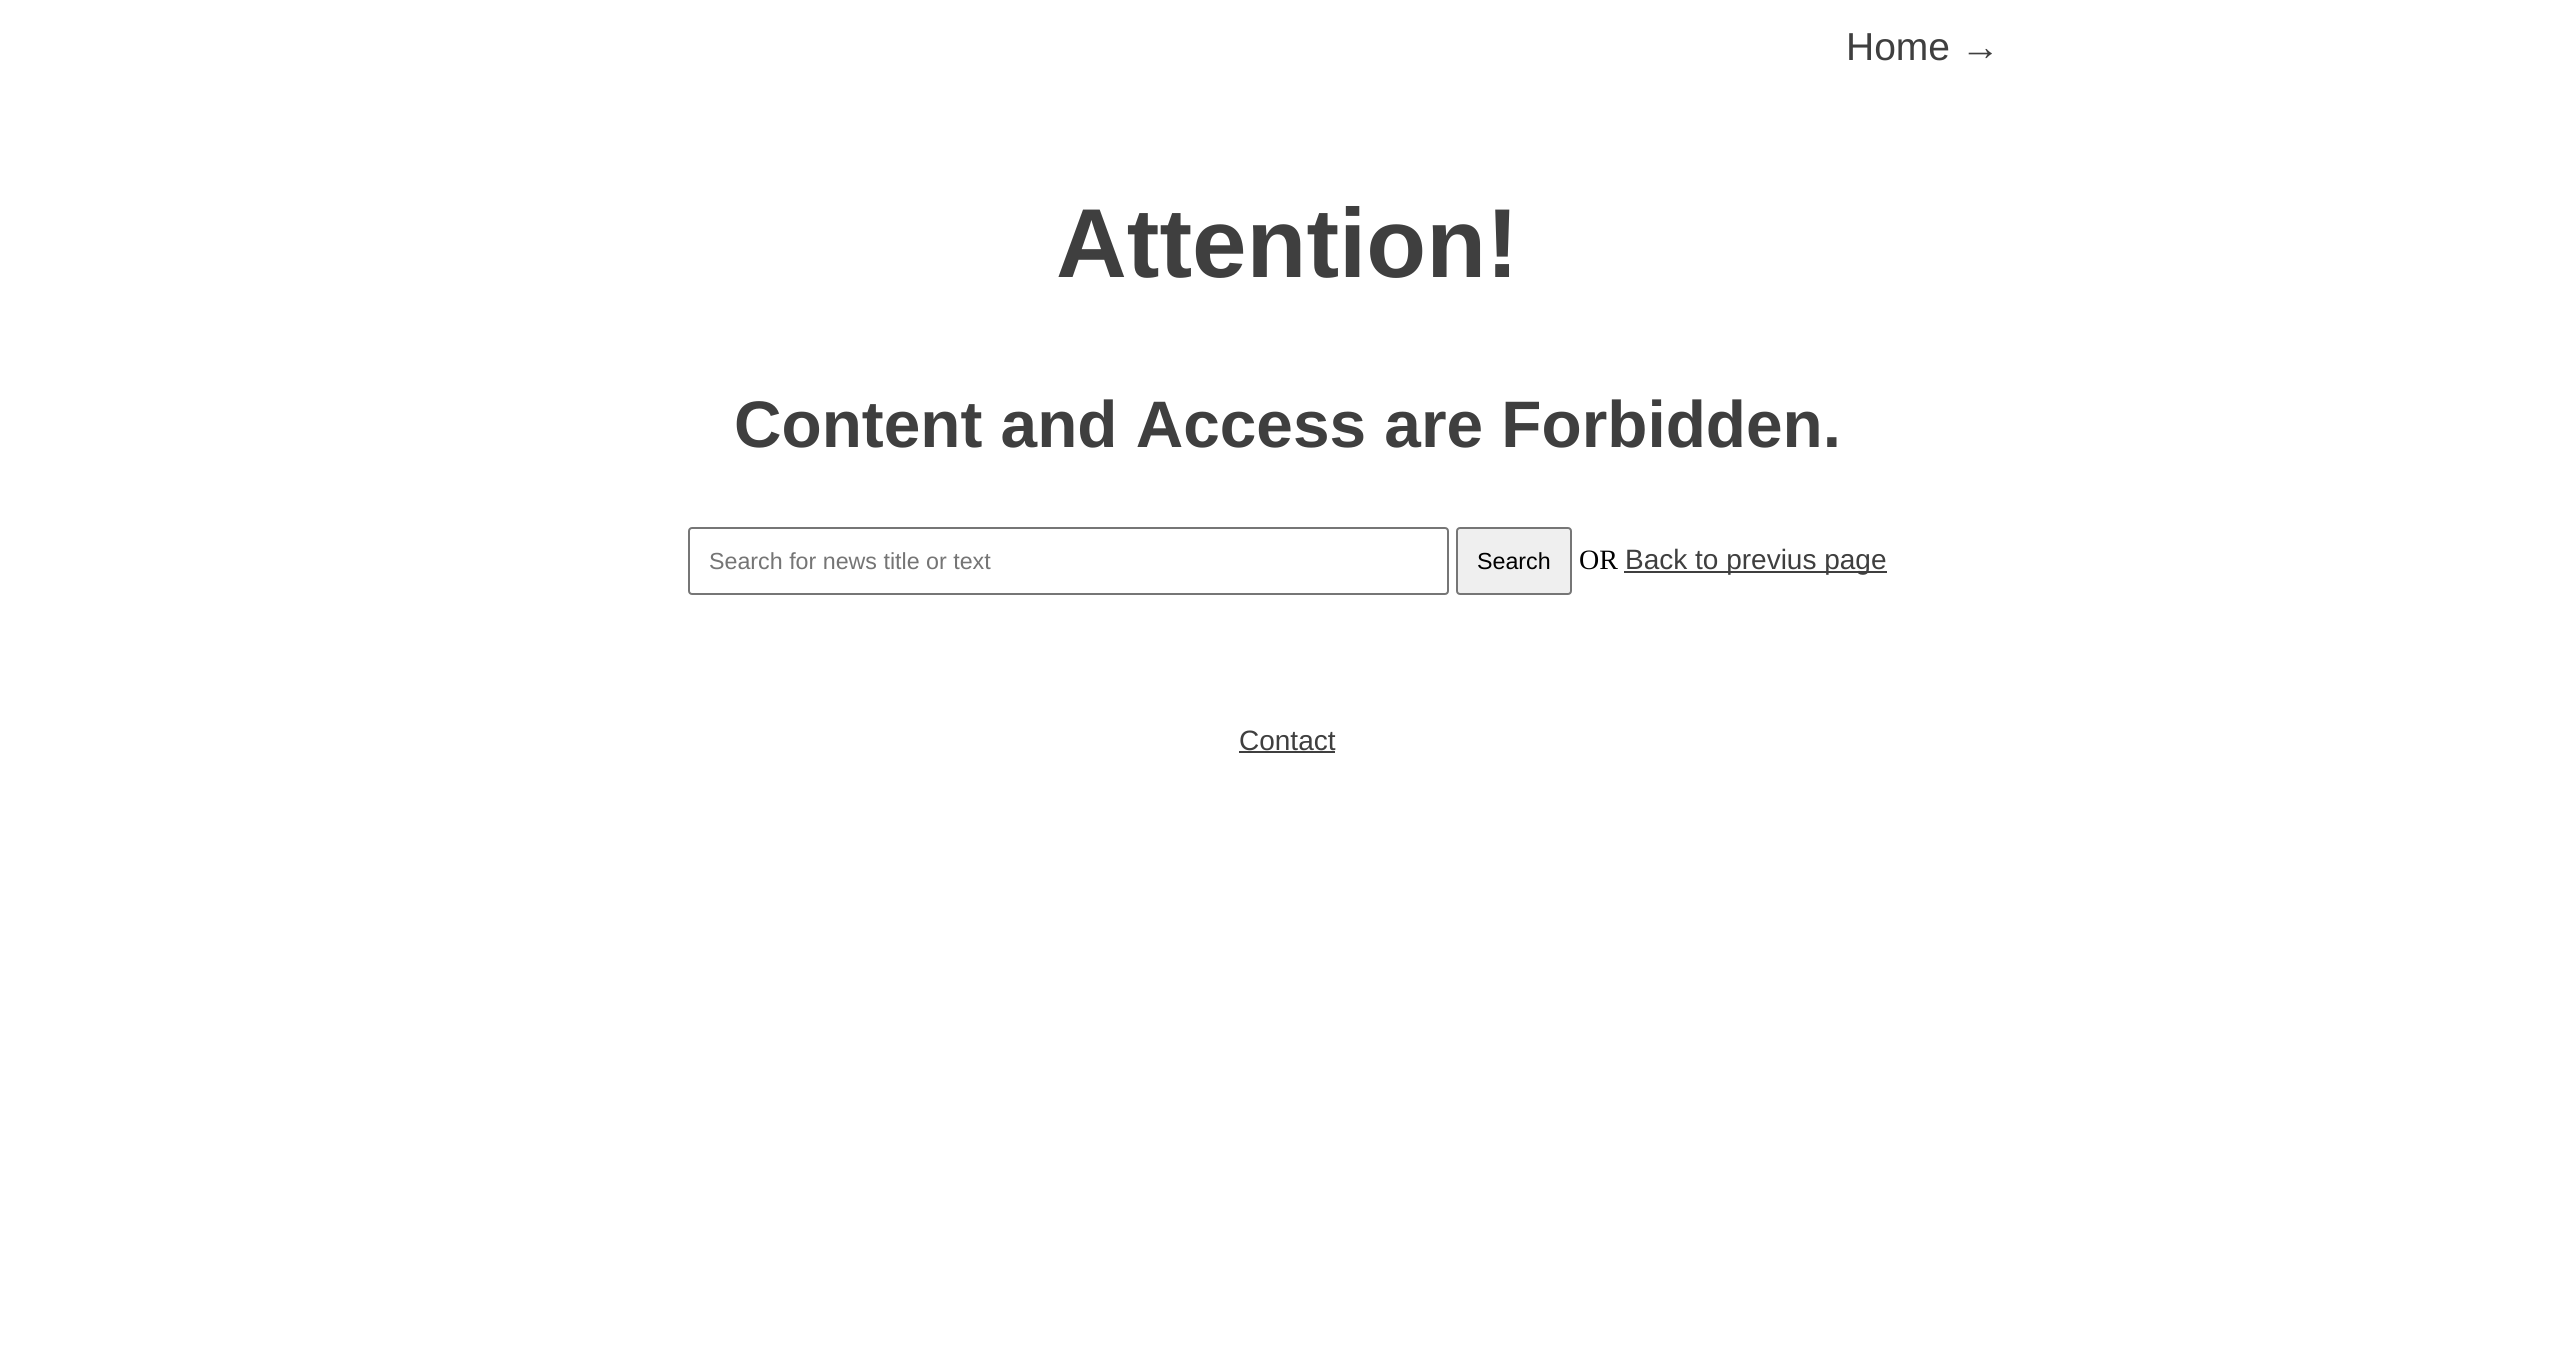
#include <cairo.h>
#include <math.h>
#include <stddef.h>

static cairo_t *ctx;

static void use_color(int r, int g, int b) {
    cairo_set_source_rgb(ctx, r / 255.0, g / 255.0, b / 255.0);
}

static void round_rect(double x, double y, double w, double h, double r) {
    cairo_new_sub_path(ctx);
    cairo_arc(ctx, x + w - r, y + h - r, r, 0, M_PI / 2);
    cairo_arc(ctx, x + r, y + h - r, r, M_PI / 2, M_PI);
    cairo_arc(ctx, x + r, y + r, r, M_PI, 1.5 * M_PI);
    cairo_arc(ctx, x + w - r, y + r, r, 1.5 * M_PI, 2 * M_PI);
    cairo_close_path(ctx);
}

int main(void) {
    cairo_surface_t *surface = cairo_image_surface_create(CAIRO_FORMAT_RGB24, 2573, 1345);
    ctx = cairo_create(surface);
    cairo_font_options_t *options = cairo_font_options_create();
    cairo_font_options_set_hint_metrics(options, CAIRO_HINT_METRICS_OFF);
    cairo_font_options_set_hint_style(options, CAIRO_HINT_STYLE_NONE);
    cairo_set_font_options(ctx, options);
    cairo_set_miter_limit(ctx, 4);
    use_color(255, 255, 255);
    cairo_paint(ctx);
    cairo_select_font_face(ctx, "Liberation Sans", CAIRO_FONT_SLANT_NORMAL, CAIRO_FONT_WEIGHT_NORMAL);
    cairo_set_font_size(ctx, 39);
    use_color(63, 63, 63);
    cairo_move_to(ctx, 1846, 60);
    cairo_show_text(ctx, "Home →");
    cairo_select_font_face(ctx, "Liberation Sans", CAIRO_FONT_SLANT_NORMAL, CAIRO_FONT_WEIGHT_BOLD);
    cairo_set_font_size(ctx, 98);
    cairo_move_to(ctx, 1056, 277);
    cairo_show_text(ctx, "Attention!");
    cairo_set_font_size(ctx, 65.75);
    cairo_move_to(ctx, 734, 447);
    cairo_show_text(ctx, "Content and Access are Forbidden.");
    round_rect(689, 528, 759, 66, 3);
    use_color(118, 118, 118);
    cairo_stroke(ctx);
    cairo_select_font_face(ctx, "Liberation Sans", CAIRO_FONT_SLANT_NORMAL, CAIRO_FONT_WEIGHT_NORMAL);
    cairo_set_font_size(ctx, 23.25);
    use_color(117, 117, 117);
    cairo_move_to(ctx, 709, 569);
    cairo_show_text(ctx, "Search for news title or text");
    use_color(239, 239, 239);
    round_rect(1457, 528, 114, 66, 3);
    cairo_fill_preserve(ctx);
    use_color(118, 118, 118);
    cairo_stroke(ctx);
    use_color(0, 0, 0);
    cairo_move_to(ctx, 1477, 569);
    cairo_show_text(ctx, "Search");
    cairo_select_font_face(ctx, "Liberation Serif", CAIRO_FONT_SLANT_NORMAL, CAIRO_FONT_WEIGHT_NORMAL);
    cairo_set_font_size(ctx, 28);
    cairo_move_to(ctx, 1579, 569);
    cairo_show_text(ctx, "OR");
    use_color(63, 63, 63);
    cairo_rectangle(ctx, 1624, 571, 263, 2);
    cairo_fill(ctx);
    cairo_select_font_face(ctx, "Liberation Sans", CAIRO_FONT_SLANT_NORMAL, CAIRO_FONT_WEIGHT_NORMAL);
    cairo_move_to(ctx, 1625, 569);
    cairo_show_text(ctx, "Back to previus page");
    cairo_move_to(ctx, 1239, 750);
    cairo_show_text(ctx, "Contact");
    cairo_rectangle(ctx, 1239, 751, 96, 2);
    cairo_fill(ctx);
    cairo_surface_write_to_png(surface, "result.png");
    cairo_font_options_destroy(options);
    cairo_destroy(ctx);
    cairo_surface_destroy(surface);
    return 0;
}
